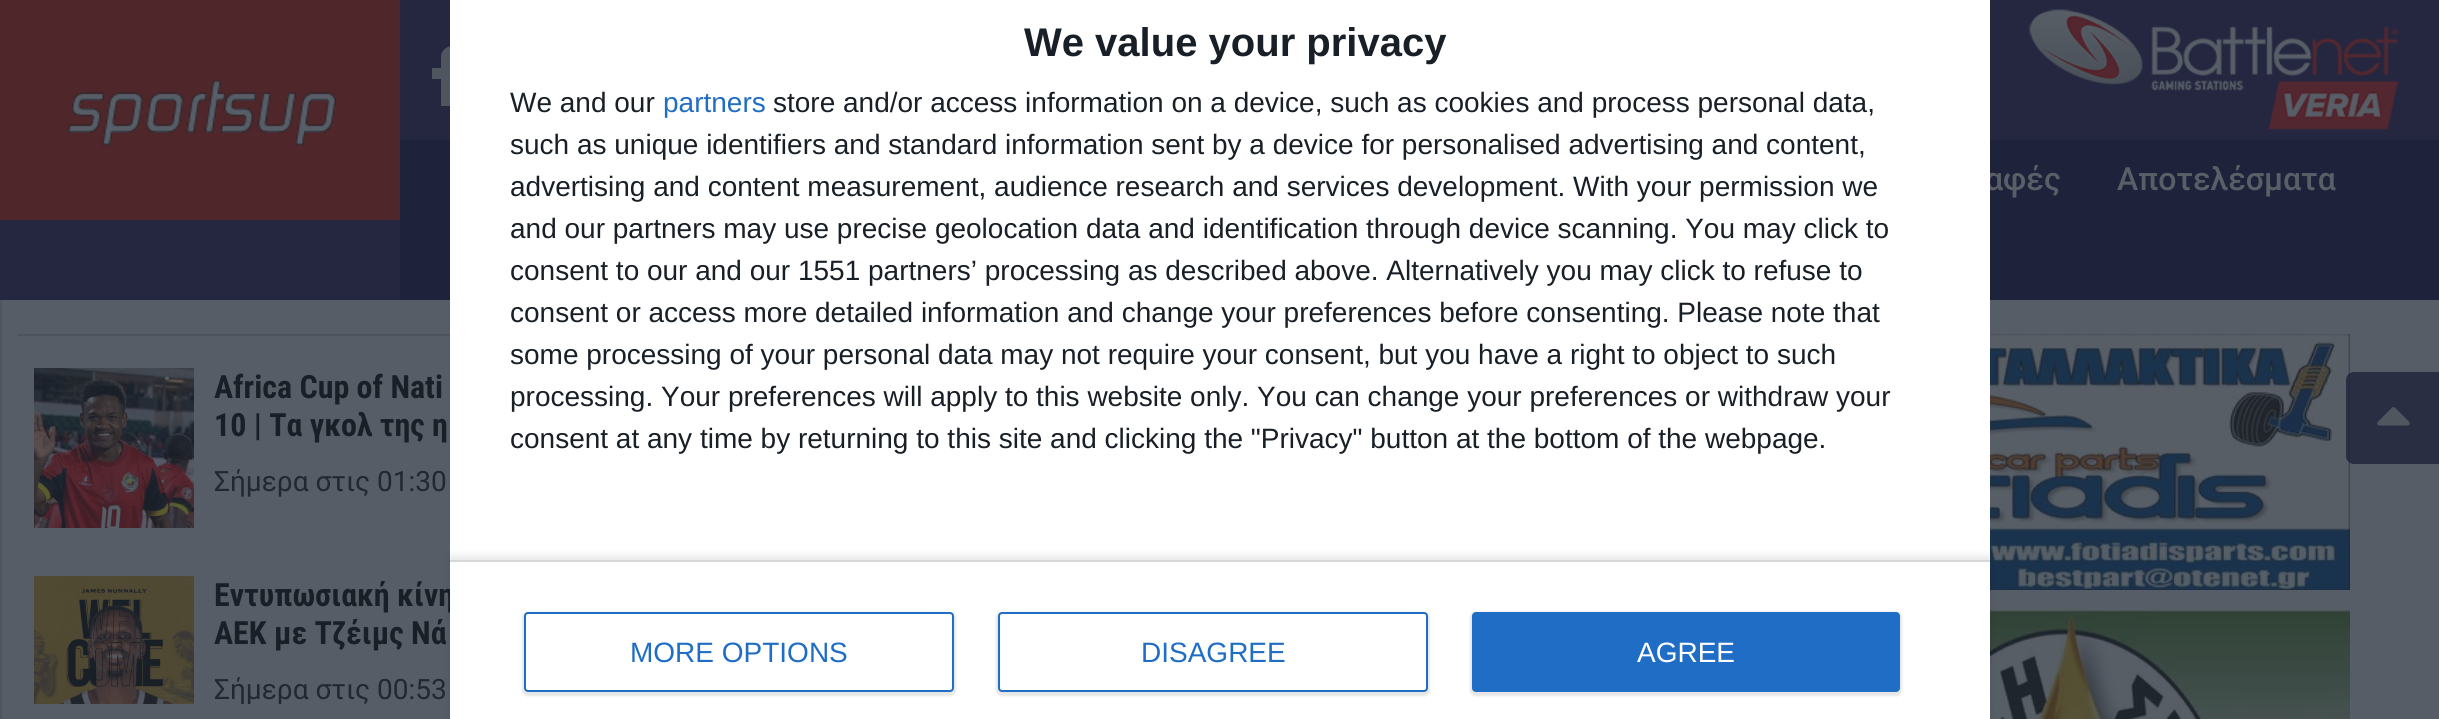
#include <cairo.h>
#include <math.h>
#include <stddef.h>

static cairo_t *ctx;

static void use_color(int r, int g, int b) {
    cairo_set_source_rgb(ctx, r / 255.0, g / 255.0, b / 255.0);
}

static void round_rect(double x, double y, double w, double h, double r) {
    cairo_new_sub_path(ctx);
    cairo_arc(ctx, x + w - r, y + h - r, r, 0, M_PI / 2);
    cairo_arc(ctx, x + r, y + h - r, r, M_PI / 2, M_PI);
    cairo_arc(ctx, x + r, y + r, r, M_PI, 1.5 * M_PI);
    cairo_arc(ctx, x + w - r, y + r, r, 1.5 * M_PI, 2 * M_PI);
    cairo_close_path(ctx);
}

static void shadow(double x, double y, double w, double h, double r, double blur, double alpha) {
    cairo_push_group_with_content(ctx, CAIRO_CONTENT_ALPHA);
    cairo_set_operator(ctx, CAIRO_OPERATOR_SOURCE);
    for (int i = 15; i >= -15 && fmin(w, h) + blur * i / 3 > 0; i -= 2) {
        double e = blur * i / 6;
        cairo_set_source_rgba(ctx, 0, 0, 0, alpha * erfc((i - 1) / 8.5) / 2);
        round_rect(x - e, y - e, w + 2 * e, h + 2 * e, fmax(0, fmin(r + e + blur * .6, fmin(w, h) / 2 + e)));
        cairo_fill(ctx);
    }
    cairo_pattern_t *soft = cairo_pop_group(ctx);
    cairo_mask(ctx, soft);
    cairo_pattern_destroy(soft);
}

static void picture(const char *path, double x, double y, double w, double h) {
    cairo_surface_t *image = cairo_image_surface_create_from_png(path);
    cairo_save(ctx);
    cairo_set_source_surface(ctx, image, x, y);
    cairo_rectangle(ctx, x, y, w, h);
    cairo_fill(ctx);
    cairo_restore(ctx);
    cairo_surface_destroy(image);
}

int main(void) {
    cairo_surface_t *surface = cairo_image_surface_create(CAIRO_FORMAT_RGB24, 2439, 719);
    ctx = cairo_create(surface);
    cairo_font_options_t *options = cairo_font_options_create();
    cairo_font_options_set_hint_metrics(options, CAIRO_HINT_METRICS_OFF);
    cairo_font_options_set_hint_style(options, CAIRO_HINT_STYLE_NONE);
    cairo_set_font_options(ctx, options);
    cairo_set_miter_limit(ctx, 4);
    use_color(87, 93, 102);
    cairo_paint(ctx);
    use_color(36, 39, 63);
    cairo_rectangle(ctx, 0, 0, 2439, 300);
    cairo_fill(ctx);
    use_color(80, 86, 95);
    cairo_new_path(ctx);
    cairo_move_to(ctx, 441, 106);
    cairo_line_to(ctx, 441, 79);
    cairo_line_to(ctx, 432, 79);
    cairo_line_to(ctx, 432, 68);
    cairo_line_to(ctx, 441, 68);
    cairo_line_to(ctx, 441, 56);
    cairo_curve_to(ctx, 443, 45, 454, 45, 463, 46);
    cairo_line_to(ctx, 463, 55);
    cairo_curve_to(ctx, 450, 55, 452, 56, 452, 68);
    cairo_line_to(ctx, 462, 68);
    cairo_line_to(ctx, 461, 79);
    cairo_line_to(ctx, 452, 79);
    cairo_line_to(ctx, 452, 106);
    cairo_close_path(ctx);
    cairo_fill(ctx);
    use_color(31, 34, 59);
    cairo_rectangle(ctx, 400, 140, 2039, 160);
    cairo_fill(ctx);
    cairo_select_font_face(ctx, "Roboto Medium", CAIRO_FONT_SLANT_NORMAL, CAIRO_FONT_WEIGHT_NORMAL);
    cairo_set_font_size(ctx, 32);
    use_color(89, 95, 103);
    cairo_move_to(ctx, 1985, 190);
    cairo_show_text(ctx, "αφές");
    cairo_select_font_face(ctx, "Roboto Condensed", CAIRO_FONT_SLANT_NORMAL, CAIRO_FONT_WEIGHT_BOLD);
    use_color(25, 31, 39);
    cairo_move_to(ctx, 214, 606);
    cairo_show_text(ctx, "Εντυπωσιακή κίνη");
    use_color(255, 255, 255);
    cairo_rectangle(ctx, 450, 0, 1540, 719);
    cairo_fill(ctx);
    cairo_select_font_face(ctx, "Liberation Sans", CAIRO_FONT_SLANT_NORMAL, CAIRO_FONT_WEIGHT_BOLD);
    cairo_set_font_size(ctx, 40);
    use_color(25, 31, 39);
    cairo_move_to(ctx, 1024, 56);
    cairo_show_text(ctx, "We value your privacy");
    cairo_select_font_face(ctx, "Liberation Sans", CAIRO_FONT_SLANT_NORMAL, CAIRO_FONT_WEIGHT_NORMAL);
    cairo_set_font_size(ctx, 28);
    cairo_move_to(ctx, 510, 112);
    cairo_show_text(ctx, "We and our");
    use_color(32, 109, 197);
    cairo_move_to(ctx, 663, 112);
    cairo_show_text(ctx, "partners");
    use_color(25, 31, 39);
    cairo_move_to(ctx, 773, 112);
    cairo_show_text(ctx, "store and/or access information on a device, such as cookies and process personal data,");
    cairo_move_to(ctx, 510, 154);
    cairo_show_text(ctx, "such as unique identifiers and standard information sent by a device for personalised advertising and content,");
    cairo_move_to(ctx, 510, 196);
    cairo_show_text(ctx, "advertising and content measurement, audience research and services development. With your permission we");
    cairo_move_to(ctx, 510, 238);
    cairo_show_text(ctx, "and our partners may use precise geolocation data and identification through device scanning. You may click to");
    cairo_move_to(ctx, 510, 280);
    cairo_show_text(ctx, "consent to our and our 1551 partners’ processing as described above. Alternatively you may click to refuse to");
    cairo_move_to(ctx, 510, 322);
    cairo_show_text(ctx, "consent or access more detailed information and change your preferences before consenting. Please note that");
    cairo_move_to(ctx, 510, 364);
    cairo_show_text(ctx, "some processing of your personal data may not require your consent, but you have a right to object to such");
    cairo_move_to(ctx, 510, 406);
    cairo_show_text(ctx, "processing. Your preferences will apply to this website only. You can change your preferences or withdraw your");
    cairo_move_to(ctx, 510, 448);
    cairo_show_text(ctx, "consent at any time by returning to this site and clicking the \"Privacy\" button at the bottom of the webpage.");
    picture("img5.png", 1990, 334, 360, 256);
    picture("img6.png", 1990, 606, 360, 113);
    cairo_save(ctx);
    cairo_set_fill_rule(ctx, CAIRO_FILL_RULE_EVEN_ODD);
    cairo_new_path(ctx);
    cairo_move_to(ctx, 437, 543);
    cairo_line_to(ctx, 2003, 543);
    cairo_line_to(ctx, 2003, 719);
    cairo_line_to(ctx, 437, 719);
    cairo_close_path(ctx);
    cairo_move_to(ctx, 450, 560);
    cairo_line_to(ctx, 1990, 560);
    cairo_line_to(ctx, 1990, 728);
    cairo_line_to(ctx, 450, 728);
    cairo_close_path(ctx);
    cairo_clip(ctx);
    use_color(0, 0, 0);
    shadow(450, 556, 1540, 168, 0, 4, 0.1);
    cairo_restore(ctx);
    use_color(216, 216, 216);
    cairo_rectangle(ctx, 450, 560, 1540, 2);
    cairo_fill(ctx);
    use_color(0, 0, 0);
    shadow(522, 612, 434, 84, 6, 1, 0.1);
    use_color(255, 255, 255);
    round_rect(525, 613, 428, 78, 3);
    cairo_fill_preserve(ctx);
    use_color(32, 109, 197);
    cairo_stroke(ctx);
    cairo_move_to(ctx, 630, 662);
    cairo_show_text(ctx, "MORE OPTIONS");
    use_color(0, 0, 0);
    shadow(996, 612, 434, 84, 6, 1, 0.1);
    use_color(255, 255, 255);
    round_rect(999, 613, 428, 78, 3);
    cairo_fill_preserve(ctx);
    use_color(32, 109, 197);
    cairo_stroke(ctx);
    cairo_move_to(ctx, 1141, 662);
    cairo_show_text(ctx, "DISAGREE");
    use_color(0, 0, 0);
    shadow(1470, 612, 432, 84, 6, 1, 0.1);
    use_color(32, 109, 197);
    round_rect(1472, 612, 428, 80, 4);
    cairo_fill(ctx);
    use_color(255, 255, 255);
    cairo_move_to(ctx, 1637, 662);
    cairo_show_text(ctx, "AGREE");
    use_color(79, 38, 42);
    cairo_rectangle(ctx, 0, 0, 400, 220);
    cairo_fill(ctx);
    picture("img1.png", 67, 79, 270, 67);
    picture("img2.png", 2029, 9, 370, 121);
    cairo_select_font_face(ctx, "Roboto Medium", CAIRO_FONT_SLANT_NORMAL, CAIRO_FONT_WEIGHT_NORMAL);
    cairo_set_font_size(ctx, 32);
    use_color(89, 95, 103);
    cairo_move_to(ctx, 2117, 190);
    cairo_show_text(ctx, "Αποτελέσματα");
    use_color(80, 86, 95);
    cairo_rectangle(ctx, 0, 300, 2, 419);
    cairo_fill(ctx);
    use_color(77, 82, 94);
    cairo_rectangle(ctx, 18, 334, 432, 2);
    cairo_fill(ctx);
    picture("img3.png", 34, 368, 160, 160);
    cairo_select_font_face(ctx, "Roboto Condensed", CAIRO_FONT_SLANT_NORMAL, CAIRO_FONT_WEIGHT_BOLD);
    use_color(25, 31, 39);
    cairo_move_to(ctx, 214, 398);
    cairo_show_text(ctx, "Africa Cup of Nati");
    cairo_move_to(ctx, 214, 436);
    cairo_show_text(ctx, "10 | Τα γκολ της η");
    cairo_select_font_face(ctx, "Roboto", CAIRO_FONT_SLANT_NORMAL, CAIRO_FONT_WEIGHT_NORMAL);
    cairo_set_font_size(ctx, 28);
    use_color(33, 40, 49);
    cairo_move_to(ctx, 214, 491);
    cairo_show_text(ctx, "Σήμερα στις 01:30");
    picture("img4.png", 34, 576, 160, 128);
    cairo_select_font_face(ctx, "Roboto Condensed", CAIRO_FONT_SLANT_NORMAL, CAIRO_FONT_WEIGHT_BOLD);
    cairo_set_font_size(ctx, 32);
    use_color(25, 31, 39);
    cairo_move_to(ctx, 214, 644);
    cairo_show_text(ctx, "ΑΕΚ με Τζέιμς Νά");
    cairo_save(ctx);
    cairo_rectangle(ctx, 18, 560, 604, 144);
    cairo_clip(ctx);
    cairo_select_font_face(ctx, "Roboto", CAIRO_FONT_SLANT_NORMAL, CAIRO_FONT_WEIGHT_NORMAL);
    cairo_set_font_size(ctx, 28);
    use_color(33, 40, 49);
    cairo_move_to(ctx, 214, 699);
    cairo_show_text(ctx, "Σήμερα στις 00:53");
    cairo_restore(ctx);
    cairo_set_source_rgba(ctx, 0.122, 0.133, 0.231, 0.8);
    cairo_new_path(ctx);
    cairo_move_to(ctx, 2354, 372);
    cairo_line_to(ctx, 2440, 372);
    cairo_line_to(ctx, 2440, 464);
    cairo_line_to(ctx, 2354, 464);
    cairo_curve_to(ctx, 2349.5, 464, 2346, 460.5, 2346, 456);
    cairo_line_to(ctx, 2346, 380);
    cairo_curve_to(ctx, 2346, 375.5, 2349.5, 372, 2354, 372);
    cairo_close_path(ctx);
    cairo_fill(ctx);
    picture("img7.png", 2377, 407, 33, 19);
    cairo_surface_write_to_png(surface, "result.png");
    cairo_font_options_destroy(options);
    cairo_destroy(ctx);
    cairo_surface_destroy(surface);
    return 0;
}
